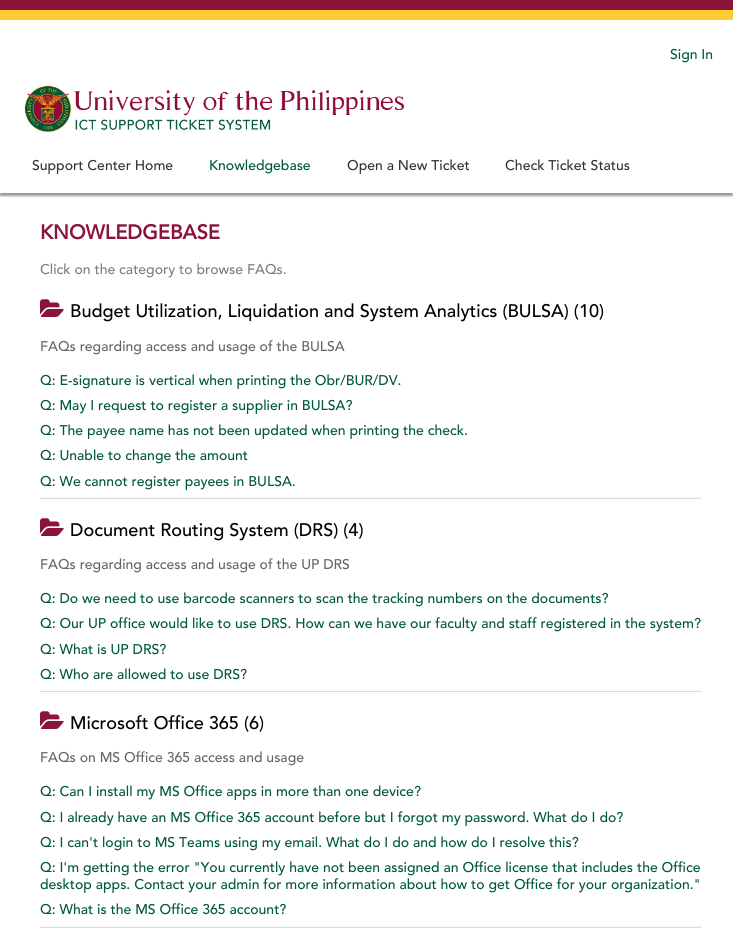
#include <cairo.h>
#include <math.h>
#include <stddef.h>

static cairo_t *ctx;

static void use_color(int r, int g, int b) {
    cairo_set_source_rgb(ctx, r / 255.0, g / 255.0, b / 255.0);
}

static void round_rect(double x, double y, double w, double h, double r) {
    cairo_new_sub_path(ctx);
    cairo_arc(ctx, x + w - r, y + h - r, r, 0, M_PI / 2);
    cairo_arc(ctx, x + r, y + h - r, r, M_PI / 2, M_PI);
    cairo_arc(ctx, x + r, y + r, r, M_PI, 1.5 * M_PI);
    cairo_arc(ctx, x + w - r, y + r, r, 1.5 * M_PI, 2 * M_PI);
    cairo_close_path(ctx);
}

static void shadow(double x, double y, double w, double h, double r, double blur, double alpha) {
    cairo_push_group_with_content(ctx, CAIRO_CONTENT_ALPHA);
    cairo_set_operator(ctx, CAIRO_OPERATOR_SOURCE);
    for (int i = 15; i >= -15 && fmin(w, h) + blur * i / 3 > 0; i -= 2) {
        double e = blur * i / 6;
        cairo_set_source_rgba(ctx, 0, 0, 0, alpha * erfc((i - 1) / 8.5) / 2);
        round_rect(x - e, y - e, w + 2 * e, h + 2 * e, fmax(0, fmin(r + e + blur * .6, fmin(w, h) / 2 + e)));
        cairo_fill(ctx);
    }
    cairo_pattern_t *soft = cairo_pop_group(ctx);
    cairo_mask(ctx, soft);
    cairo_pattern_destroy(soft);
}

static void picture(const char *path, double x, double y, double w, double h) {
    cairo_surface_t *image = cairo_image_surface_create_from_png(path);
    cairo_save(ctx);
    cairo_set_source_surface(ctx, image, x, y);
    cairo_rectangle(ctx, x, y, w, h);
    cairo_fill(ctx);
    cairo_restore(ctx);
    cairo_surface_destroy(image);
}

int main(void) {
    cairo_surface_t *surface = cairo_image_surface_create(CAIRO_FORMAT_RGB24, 733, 931);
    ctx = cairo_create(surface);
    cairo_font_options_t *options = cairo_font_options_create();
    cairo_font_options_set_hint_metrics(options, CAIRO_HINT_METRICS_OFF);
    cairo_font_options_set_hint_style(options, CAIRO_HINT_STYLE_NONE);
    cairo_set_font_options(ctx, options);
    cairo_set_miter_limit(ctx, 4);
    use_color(255, 255, 255);
    cairo_paint(ctx);
    use_color(138, 21, 56);
    cairo_rectangle(ctx, 0, 0, 733, 10);
    cairo_fill(ctx);
    use_color(255, 204, 51);
    cairo_rectangle(ctx, 0, 10, 733, 10);
    cairo_fill(ctx);
    cairo_select_font_face(ctx, "Avenir Medium", CAIRO_FONT_SLANT_NORMAL, CAIRO_FONT_WEIGHT_NORMAL);
    cairo_set_font_size(ctx, 14);
    use_color(0, 87, 63);
    cairo_move_to(ctx, 670, 59);
    cairo_show_text(ctx, "Sign In");
    picture("img1.png", 24, 85, 380, 47);
    cairo_save(ctx);
    cairo_rectangle(ctx, 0, 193, 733, 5);
    cairo_clip(ctx);
    use_color(0, 0, 0);
    shadow(0, 152, 733, 44, 0, 1, 0.4);
    cairo_restore(ctx);
    use_color(51, 51, 51);
    cairo_move_to(ctx, 32, 170);
    cairo_show_text(ctx, "Support Center Home");
    use_color(0, 87, 63);
    cairo_move_to(ctx, 209, 170);
    cairo_show_text(ctx, "Knowledgebase");
    use_color(51, 51, 51);
    cairo_move_to(ctx, 347, 170);
    cairo_show_text(ctx, "Open a New Ticket");
    cairo_move_to(ctx, 505, 170);
    cairo_show_text(ctx, "Check Ticket Status");
    cairo_select_font_face(ctx, "Avenir", CAIRO_FONT_SLANT_NORMAL, CAIRO_FONT_WEIGHT_BOLD);
    cairo_set_font_size(ctx, 20);
    use_color(138, 21, 56);
    cairo_move_to(ctx, 40, 239);
    cairo_show_text(ctx, "KNOWLEDGEBASE");
    cairo_select_font_face(ctx, "Avenir Medium", CAIRO_FONT_SLANT_NORMAL, CAIRO_FONT_WEIGHT_NORMAL);
    cairo_set_font_size(ctx, 14);
    use_color(126, 126, 126);
    cairo_move_to(ctx, 40, 274);
    cairo_show_text(ctx, "Click on the category to browse FAQs.");
    use_color(250, 250, 250);
    cairo_rectangle(ctx, 40, 496, 661, 2);
    cairo_fill(ctx);
    use_color(221, 221, 221);
    cairo_rectangle(ctx, 40, 498, 661, 1);
    cairo_fill(ctx);
    picture("img2.png", 40, 299, 24, 18);
    cairo_set_font_size(ctx, 18.1);
    use_color(0, 0, 0);
    cairo_move_to(ctx, 70, 317);
    cairo_show_text(ctx, "Budget Utilization, Liquidation and System Analytics (BULSA) (10)");
    cairo_set_font_size(ctx, 14);
    use_color(102, 102, 102);
    cairo_move_to(ctx, 40, 351);
    cairo_show_text(ctx, "FAQs regarding access and usage of the BULSA");
    use_color(0, 87, 63);
    cairo_move_to(ctx, 40, 385);
    cairo_show_text(ctx, "Q: E-signature is vertical when printing the Obr/BUR/DV.");
    cairo_move_to(ctx, 40, 410);
    cairo_show_text(ctx, "Q: May I request to register a supplier in BULSA?");
    cairo_move_to(ctx, 40, 435);
    cairo_show_text(ctx, "Q: The payee name has not been updated when printing the check.");
    cairo_move_to(ctx, 40, 460);
    cairo_show_text(ctx, "Q: Unable to change the amount");
    cairo_move_to(ctx, 40, 486);
    cairo_show_text(ctx, "Q: We cannot register payees in BULSA.");
    use_color(250, 250, 250);
    cairo_rectangle(ctx, 40, 689, 661, 2);
    cairo_fill(ctx);
    use_color(221, 221, 221);
    cairo_rectangle(ctx, 40, 691, 661, 1);
    cairo_fill(ctx);
    picture("img2.png", 40, 518, 24, 18);
    cairo_set_font_size(ctx, 18.1);
    use_color(0, 0, 0);
    cairo_move_to(ctx, 70, 536);
    cairo_show_text(ctx, "Document Routing System (DRS) (4)");
    cairo_set_font_size(ctx, 14);
    use_color(102, 102, 102);
    cairo_move_to(ctx, 40, 569);
    cairo_show_text(ctx, "FAQs regarding access and usage of the UP DRS");
    use_color(0, 87, 63);
    cairo_move_to(ctx, 40, 603);
    cairo_show_text(ctx, "Q: Do we need to use barcode scanners to scan the tracking numbers on the documents?");
    cairo_move_to(ctx, 40, 628);
    cairo_show_text(ctx, "Q: Our UP office would like to use DRS. How can we have our faculty and staff registered in the system?");
    cairo_move_to(ctx, 40, 654);
    cairo_show_text(ctx, "Q: What is UP DRS?");
    cairo_move_to(ctx, 40, 679);
    cairo_show_text(ctx, "Q: Who are allowed to use DRS?");
    use_color(250, 250, 250);
    cairo_rectangle(ctx, 40, 925, 661, 2);
    cairo_fill(ctx);
    use_color(221, 221, 221);
    cairo_rectangle(ctx, 40, 927, 661, 1);
    cairo_fill(ctx);
    picture("img2.png", 40, 711, 24, 18);
    cairo_set_font_size(ctx, 18.1);
    use_color(0, 0, 0);
    cairo_move_to(ctx, 70, 729);
    cairo_show_text(ctx, "Microsoft Office 365 (6)");
    cairo_set_font_size(ctx, 14);
    use_color(102, 102, 102);
    cairo_move_to(ctx, 40, 762);
    cairo_show_text(ctx, "FAQs on MS Office 365 access and usage");
    use_color(0, 87, 63);
    cairo_move_to(ctx, 40, 796);
    cairo_show_text(ctx, "Q: Can I install my MS Office apps in more than one device?");
    cairo_move_to(ctx, 40, 822);
    cairo_show_text(ctx, "Q: I already have an MS Office 365 account before but I forgot my password. What do I do?");
    cairo_move_to(ctx, 40, 847);
    cairo_show_text(ctx, "Q: I can't login to MS Teams using my email. What do I do and how do I resolve this?");
    cairo_move_to(ctx, 40, 872);
    cairo_show_text(ctx, "Q: I'm getting the error \"You currently have not been assigned an Office license that includes the Office");
    cairo_move_to(ctx, 40, 889);
    cairo_show_text(ctx, "desktop apps. Contact your admin for more information about how to get Office for your organization.\"");
    cairo_move_to(ctx, 40, 914);
    cairo_show_text(ctx, "Q: What is the MS Office 365 account?");
    cairo_surface_write_to_png(surface, "result.png");
    cairo_font_options_destroy(options);
    cairo_destroy(ctx);
    cairo_surface_destroy(surface);
    return 0;
}
